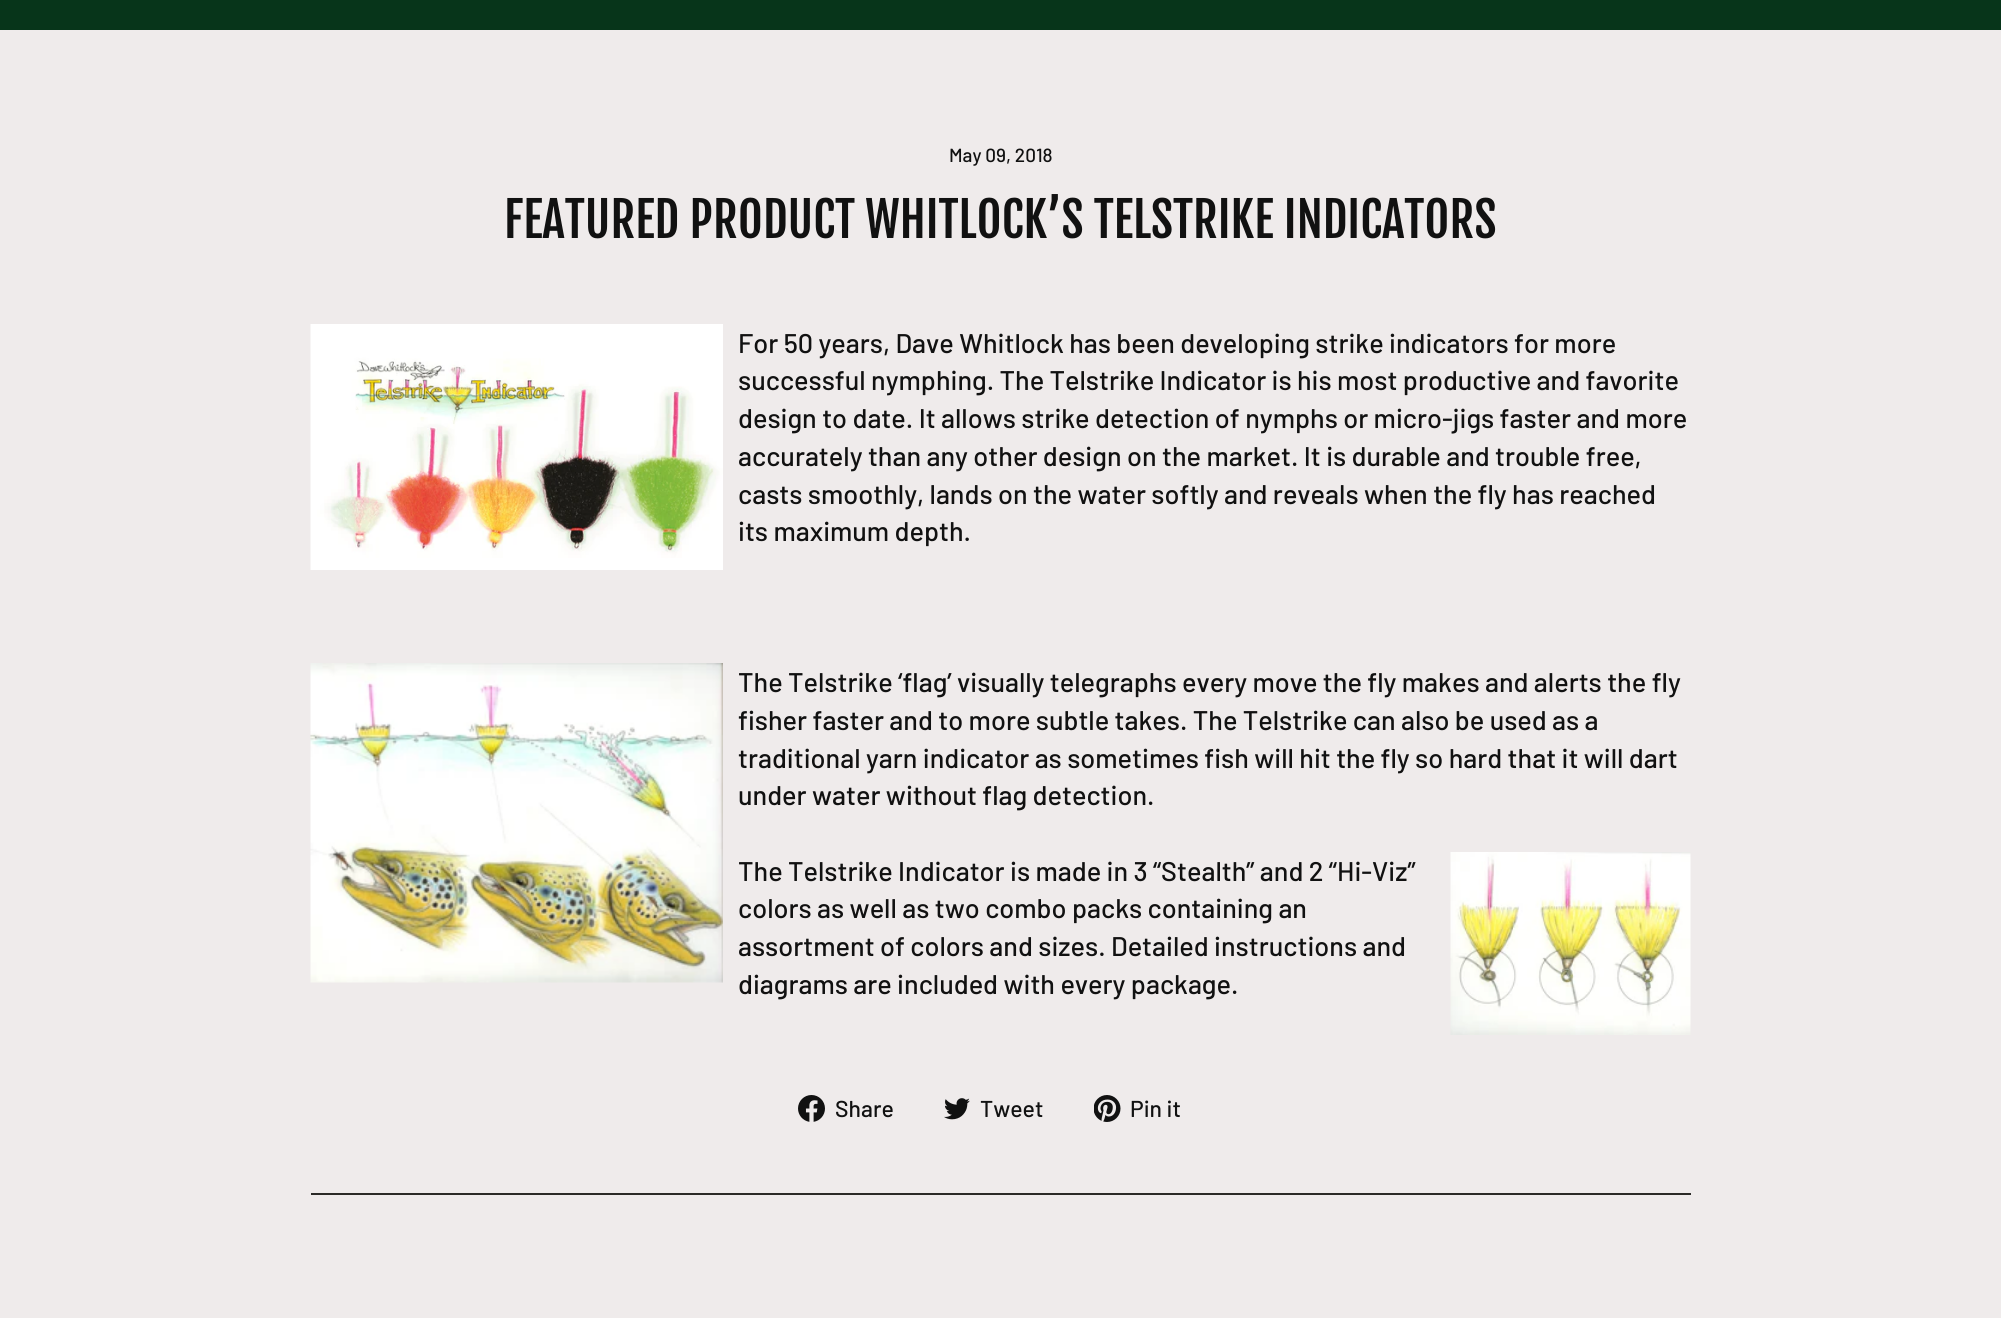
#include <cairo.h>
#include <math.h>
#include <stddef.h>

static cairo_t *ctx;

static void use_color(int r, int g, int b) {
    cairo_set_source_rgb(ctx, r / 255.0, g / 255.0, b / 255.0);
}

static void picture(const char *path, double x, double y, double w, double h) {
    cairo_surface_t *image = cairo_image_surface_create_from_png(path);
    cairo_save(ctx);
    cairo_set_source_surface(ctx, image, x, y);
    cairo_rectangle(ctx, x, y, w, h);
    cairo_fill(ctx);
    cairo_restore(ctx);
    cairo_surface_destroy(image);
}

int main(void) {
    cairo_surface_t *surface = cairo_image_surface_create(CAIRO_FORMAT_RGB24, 2001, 1318);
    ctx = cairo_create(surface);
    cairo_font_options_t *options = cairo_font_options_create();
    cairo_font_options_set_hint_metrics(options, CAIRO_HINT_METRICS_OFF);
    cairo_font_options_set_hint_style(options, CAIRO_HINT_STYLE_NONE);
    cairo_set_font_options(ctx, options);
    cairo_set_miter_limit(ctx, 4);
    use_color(239, 235, 235);
    cairo_paint(ctx);
    use_color(7, 53, 26);
    cairo_rectangle(ctx, 0, 0, 2001, 30);
    cairo_fill(ctx);
    cairo_select_font_face(ctx, "Barlow Medium", CAIRO_FONT_SLANT_NORMAL, CAIRO_FONT_WEIGHT_NORMAL);
    cairo_set_font_size(ctx, 19);
    use_color(17, 17, 17);
    cairo_move_to(ctx, 949, 162);
    cairo_show_text(ctx, "May 09, 2018");
    cairo_select_font_face(ctx, "Fjalla One", CAIRO_FONT_SLANT_NORMAL, CAIRO_FONT_WEIGHT_NORMAL);
    cairo_set_font_size(ctx, 48);
    cairo_move_to(ctx, 504, 238);
    cairo_show_text(ctx, "FEATURED PRODUCT WHITLOCK’S TELSTRIKE INDICATORS");
    picture("img1.png", 310, 324, 413, 246);
    cairo_select_font_face(ctx, "Barlow Medium", CAIRO_FONT_SLANT_NORMAL, CAIRO_FONT_WEIGHT_NORMAL);
    cairo_set_font_size(ctx, 27);
    cairo_move_to(ctx, 738, 353);
    cairo_show_text(ctx, "For 50 years, Dave Whitlock has been developing strike indicators for more");
    cairo_move_to(ctx, 738, 390);
    cairo_show_text(ctx, "successful nymphing. The Telstrike Indicator is his most productive and favorite");
    cairo_move_to(ctx, 738, 428);
    cairo_show_text(ctx, "design to date. It allows strike detection of nymphs or micro-jigs faster and more");
    cairo_move_to(ctx, 738, 466);
    cairo_show_text(ctx, "accurately than any other design on the market. It is durable and trouble free,");
    cairo_move_to(ctx, 738, 504);
    cairo_show_text(ctx, "casts smoothly, lands on the water softly and reveals when the fly has reached");
    cairo_move_to(ctx, 738, 541);
    cairo_show_text(ctx, "its maximum depth.");
    picture("img2.png", 310, 663, 413, 320);
    cairo_move_to(ctx, 738, 692);
    cairo_show_text(ctx, "The Telstrike ‘flag’ visually telegraphs every move the fly makes and alerts the fly");
    cairo_move_to(ctx, 738, 730);
    cairo_show_text(ctx, "fisher faster and to more subtle takes. The Telstrike can also be used as a");
    cairo_move_to(ctx, 738, 768);
    cairo_show_text(ctx, "traditional yarn indicator as sometimes fish will hit the fly so hard that it will dart");
    cairo_move_to(ctx, 738, 805);
    cairo_show_text(ctx, "under water without flag detection.");
    cairo_move_to(ctx, 738, 881);
    cairo_show_text(ctx, "The Telstrike Indicator is made in 3 “Stealth” and 2 “Hi-Viz”");
    cairo_move_to(ctx, 738, 918);
    cairo_show_text(ctx, "colors as well as two combo packs containing an");
    cairo_move_to(ctx, 738, 956);
    cairo_show_text(ctx, "assortment of colors and sizes. Detailed instructions and");
    cairo_move_to(ctx, 738, 994);
    cairo_show_text(ctx, "diagrams are included with every package.");
    picture("img3.png", 1450, 852, 241, 183);
    picture("img4.png", 798, 1095, 27, 27);
    cairo_set_font_size(ctx, 23);
    cairo_move_to(ctx, 835, 1117);
    cairo_show_text(ctx, "Share");
    picture("img5.png", 944, 1098, 26, 22);
    cairo_move_to(ctx, 980, 1117);
    cairo_show_text(ctx, "Tweet");
    picture("img6.png", 1094, 1095, 27, 27);
    cairo_move_to(ctx, 1130, 1117);
    cairo_show_text(ctx, "Pin it");
    use_color(43, 42, 39);
    cairo_rectangle(ctx, 311, 1193, 1380, 2);
    cairo_fill(ctx);
    cairo_surface_write_to_png(surface, "result.png");
    cairo_font_options_destroy(options);
    cairo_destroy(ctx);
    cairo_surface_destroy(surface);
    return 0;
}
